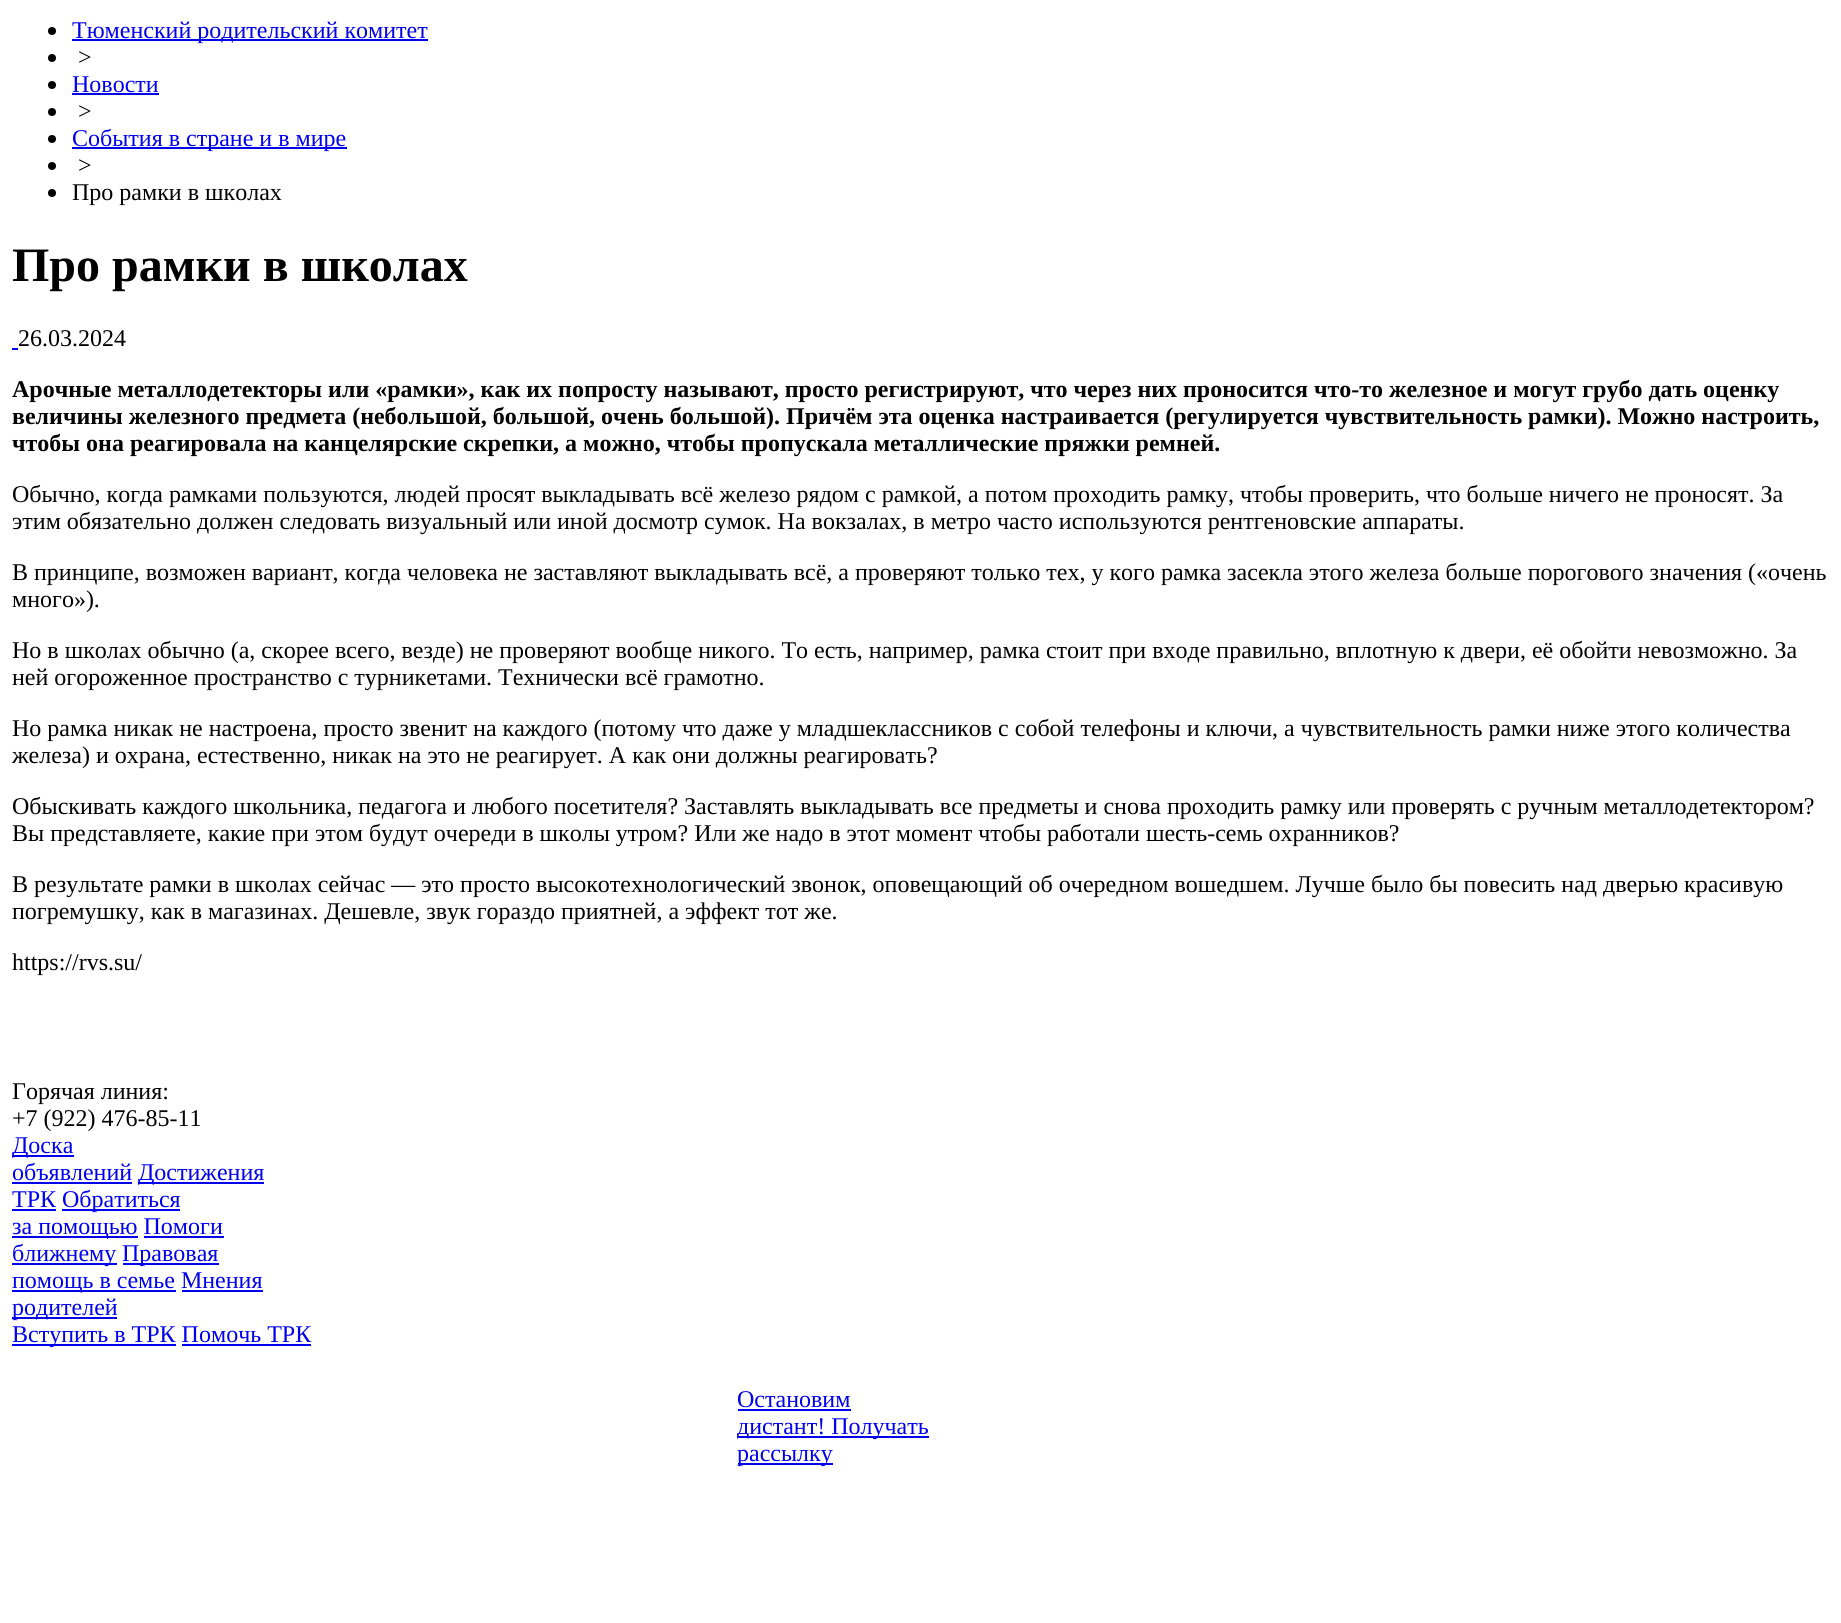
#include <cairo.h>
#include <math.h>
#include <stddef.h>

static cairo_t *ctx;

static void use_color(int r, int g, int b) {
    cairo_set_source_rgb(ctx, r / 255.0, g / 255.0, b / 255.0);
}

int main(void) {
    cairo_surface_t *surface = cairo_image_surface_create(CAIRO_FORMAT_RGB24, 1841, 1623);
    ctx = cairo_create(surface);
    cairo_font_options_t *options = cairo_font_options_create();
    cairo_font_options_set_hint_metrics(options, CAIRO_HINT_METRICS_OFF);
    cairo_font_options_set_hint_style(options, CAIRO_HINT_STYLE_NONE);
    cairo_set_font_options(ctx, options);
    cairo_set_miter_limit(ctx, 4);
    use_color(255, 255, 255);
    cairo_paint(ctx);
    use_color(0, 0, 0);
    cairo_arc(ctx, 52, 31, 4, 0, 2 * M_PI);
    cairo_fill(ctx);
    use_color(0, 0, 238);
    cairo_rectangle(ctx, 72, 39, 356, 2);
    cairo_fill(ctx);
    cairo_select_font_face(ctx, "Liberation Serif", CAIRO_FONT_SLANT_NORMAL, CAIRO_FONT_WEIGHT_NORMAL);
    cairo_set_font_size(ctx, 24);
    cairo_move_to(ctx, 72, 38);
    cairo_show_text(ctx, "Тюменский родительский комитет");
    use_color(0, 0, 0);
    cairo_new_path(ctx);
    cairo_arc(ctx, 52, 58, 4, 0, 2 * M_PI);
    cairo_fill(ctx);
    cairo_move_to(ctx, 78, 65);
    cairo_show_text(ctx, ">");
    cairo_new_path(ctx);
    cairo_arc(ctx, 52, 85, 4, 0, 2 * M_PI);
    cairo_fill(ctx);
    use_color(0, 0, 238);
    cairo_move_to(ctx, 72, 92);
    cairo_show_text(ctx, "Новости");
    cairo_rectangle(ctx, 72, 93, 87, 2);
    cairo_fill(ctx);
    use_color(0, 0, 0);
    cairo_arc(ctx, 52, 112, 4, 0, 2 * M_PI);
    cairo_fill(ctx);
    cairo_move_to(ctx, 78, 119);
    cairo_show_text(ctx, ">");
    cairo_new_path(ctx);
    cairo_arc(ctx, 52, 139, 4, 0, 2 * M_PI);
    cairo_fill(ctx);
    use_color(0, 0, 238);
    cairo_rectangle(ctx, 72, 147, 275, 2);
    cairo_fill(ctx);
    cairo_move_to(ctx, 72, 146);
    cairo_show_text(ctx, "События в стране и в мире");
    use_color(0, 0, 0);
    cairo_new_path(ctx);
    cairo_arc(ctx, 52, 166, 4, 0, 2 * M_PI);
    cairo_fill(ctx);
    cairo_move_to(ctx, 78, 173);
    cairo_show_text(ctx, ">");
    cairo_new_path(ctx);
    cairo_arc(ctx, 52, 193, 4, 0, 2 * M_PI);
    cairo_fill(ctx);
    cairo_move_to(ctx, 72, 200);
    cairo_show_text(ctx, "Про рамки в школах");
    cairo_select_font_face(ctx, "Liberation Serif", CAIRO_FONT_SLANT_NORMAL, CAIRO_FONT_WEIGHT_BOLD);
    cairo_set_font_size(ctx, 48);
    cairo_move_to(ctx, 12, 281);
    cairo_show_text(ctx, "Про рамки в школах");
    cairo_select_font_face(ctx, "Liberation Serif", CAIRO_FONT_SLANT_NORMAL, CAIRO_FONT_WEIGHT_NORMAL);
    cairo_set_font_size(ctx, 24);
    cairo_move_to(ctx, 18, 346);
    cairo_show_text(ctx, "26.03.2024");
    use_color(0, 0, 238);
    cairo_rectangle(ctx, 12, 348, 6, 2);
    cairo_fill(ctx);
    cairo_select_font_face(ctx, "Liberation Serif", CAIRO_FONT_SLANT_NORMAL, CAIRO_FONT_WEIGHT_BOLD);
    use_color(0, 0, 0);
    cairo_move_to(ctx, 12, 397);
    cairo_show_text(ctx, "Арочные металлодетекторы или «рамки», как их попросту называют, просто регистрируют, что через них проносится что-то железное и могут грубо дать оценку");
    cairo_move_to(ctx, 12, 424);
    cairo_show_text(ctx, "величины железного предмета (небольшой, большой, очень большой). Причём эта оценка настраивается (регулируется чувствительность рамки). Можно настроить,");
    cairo_move_to(ctx, 12, 451);
    cairo_show_text(ctx, "чтобы она реагировала на канцелярские скрепки, а можно, чтобы пропускала металлические пряжки ремней.");
    cairo_select_font_face(ctx, "Liberation Serif", CAIRO_FONT_SLANT_NORMAL, CAIRO_FONT_WEIGHT_NORMAL);
    cairo_move_to(ctx, 12, 502);
    cairo_show_text(ctx, "Обычно, когда рамками пользуются, людей просят выкладывать всё железо рядом с рамкой, а потом проходить рамку, чтобы проверить, что больше ничего не проносят. За");
    cairo_move_to(ctx, 12, 529);
    cairo_show_text(ctx, "этим обязательно должен следовать визуальный или иной досмотр сумок. На вокзалах, в метро часто используются рентгеновские аппараты.");
    cairo_move_to(ctx, 12, 580);
    cairo_show_text(ctx, "В принципе, возможен вариант, когда человека не заставляют выкладывать всё, а проверяют только тех, у кого рамка засекла этого железа больше порогового значения («очень");
    cairo_move_to(ctx, 12, 607);
    cairo_show_text(ctx, "много»).");
    cairo_move_to(ctx, 12, 658);
    cairo_show_text(ctx, "Но в школах обычно (а, скорее всего, везде) не проверяют вообще никого. То есть, например, рамка стоит при входе правильно, вплотную к двери, её обойти невозможно. За");
    cairo_move_to(ctx, 12, 685);
    cairo_show_text(ctx, "ней огороженное пространство с турникетами. Технически всё грамотно.");
    cairo_move_to(ctx, 12, 736);
    cairo_show_text(ctx, "Но рамка никак не настроена, просто звенит на каждого (потому что даже у младшеклассников с собой телефоны и ключи, а чувствительность рамки ниже этого количества");
    cairo_move_to(ctx, 12, 763);
    cairo_show_text(ctx, "железа) и охрана, естественно, никак на это не реагирует. А как они должны реагировать?");
    cairo_move_to(ctx, 12, 814);
    cairo_show_text(ctx, "Обыскивать каждого школьника, педагога и любого посетителя? Заставлять выкладывать все предметы и снова проходить рамку или проверять с ручным металлодетектором?");
    cairo_move_to(ctx, 12, 841);
    cairo_show_text(ctx, "Вы представляете, какие при этом будут очереди в школы утром? Или же надо в этот момент чтобы работали шесть-семь охранников?");
    cairo_move_to(ctx, 12, 892);
    cairo_show_text(ctx, "В результате рамки в школах сейчас — это просто высокотехнологический звонок, оповещающий об очередном вошедшем. Лучше было бы повесить над дверью красивую");
    cairo_move_to(ctx, 12, 919);
    cairo_show_text(ctx, "погремушку, как в магазинах. Дешевле, звук гораздо приятней, а эффект тот же.");
    cairo_move_to(ctx, 12, 970);
    cairo_show_text(ctx, "https://rvs.su/");
    cairo_move_to(ctx, 12, 1099);
    cairo_show_text(ctx, "Горячая линия:");
    cairo_move_to(ctx, 12, 1126);
    cairo_show_text(ctx, "+7 (922) 476-85-11");
    use_color(0, 0, 238);
    cairo_rectangle(ctx, 12, 1155, 62, 2);
    cairo_fill(ctx);
    cairo_move_to(ctx, 12, 1153);
    cairo_show_text(ctx, "Доска");
    cairo_move_to(ctx, 12, 1180);
    cairo_show_text(ctx, "объявлений");
    cairo_rectangle(ctx, 12, 1182, 120, 2);
    cairo_fill(ctx);
    cairo_rectangle(ctx, 138, 1182, 126, 2);
    cairo_fill(ctx);
    cairo_move_to(ctx, 138, 1180);
    cairo_show_text(ctx, "Достижения");
    cairo_move_to(ctx, 12, 1207);
    cairo_show_text(ctx, "ТРК");
    cairo_rectangle(ctx, 12, 1209, 44, 2);
    cairo_fill(ctx);
    cairo_rectangle(ctx, 62, 1209, 118, 2);
    cairo_fill(ctx);
    cairo_move_to(ctx, 62, 1207);
    cairo_show_text(ctx, "Обратиться");
    cairo_rectangle(ctx, 12, 1236, 126, 2);
    cairo_fill(ctx);
    cairo_move_to(ctx, 12, 1234);
    cairo_show_text(ctx, "за помощью Помоги");
    cairo_rectangle(ctx, 12, 1263, 105, 2);
    cairo_fill(ctx);
    cairo_move_to(ctx, 12, 1261);
    cairo_show_text(ctx, "ближнему");
    cairo_rectangle(ctx, 144, 1236, 80, 2);
    cairo_fill(ctx);
    cairo_rectangle(ctx, 123, 1263, 96, 2);
    cairo_fill(ctx);
    cairo_move_to(ctx, 122, 1261);
    cairo_show_text(ctx, "Правовая");
    cairo_rectangle(ctx, 12, 1290, 164, 2);
    cairo_fill(ctx);
    cairo_move_to(ctx, 12, 1288);
    cairo_show_text(ctx, "помощь в семье Мнения");
    cairo_rectangle(ctx, 12, 1317, 105, 2);
    cairo_fill(ctx);
    cairo_move_to(ctx, 12, 1315);
    cairo_show_text(ctx, "родителей");
    cairo_rectangle(ctx, 182, 1290, 81, 2);
    cairo_fill(ctx);
    cairo_rectangle(ctx, 12, 1344, 164, 2);
    cairo_fill(ctx);
    cairo_move_to(ctx, 12, 1342);
    cairo_show_text(ctx, "Вступить в ТРК Помочь ТРК");
    cairo_rectangle(ctx, 182, 1344, 129, 2);
    cairo_fill(ctx);
    cairo_move_to(ctx, 737, 1407);
    cairo_show_text(ctx, "Остановим");
    cairo_rectangle(ctx, 738, 1409, 113, 2);
    cairo_fill(ctx);
    cairo_rectangle(ctx, 738, 1436, 191, 2);
    cairo_fill(ctx);
    cairo_move_to(ctx, 737, 1434);
    cairo_show_text(ctx, "дистант! Получать");
    cairo_rectangle(ctx, 738, 1463, 95, 2);
    cairo_fill(ctx);
    cairo_move_to(ctx, 737, 1461);
    cairo_show_text(ctx, "рассылку");
    cairo_surface_write_to_png(surface, "result.png");
    cairo_font_options_destroy(options);
    cairo_destroy(ctx);
    cairo_surface_destroy(surface);
    return 0;
}
